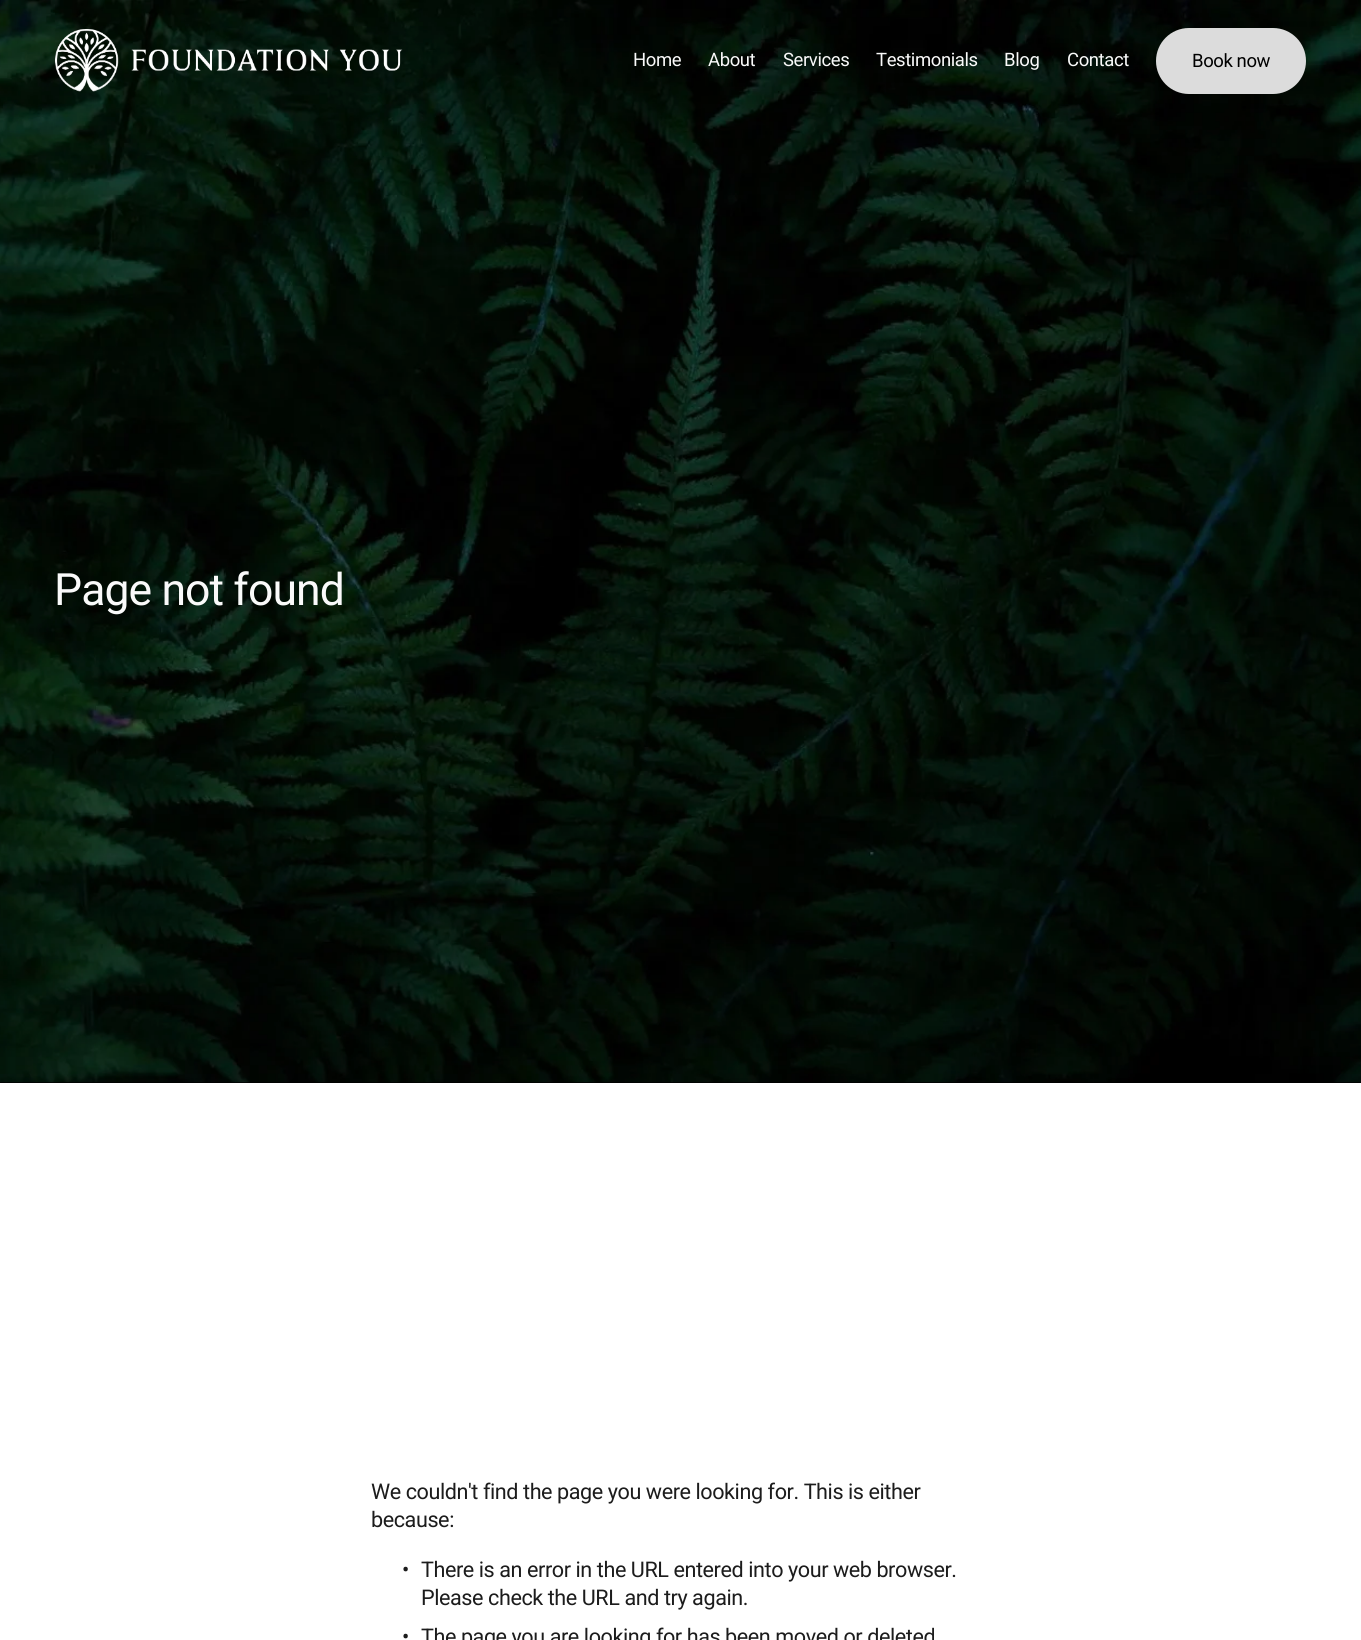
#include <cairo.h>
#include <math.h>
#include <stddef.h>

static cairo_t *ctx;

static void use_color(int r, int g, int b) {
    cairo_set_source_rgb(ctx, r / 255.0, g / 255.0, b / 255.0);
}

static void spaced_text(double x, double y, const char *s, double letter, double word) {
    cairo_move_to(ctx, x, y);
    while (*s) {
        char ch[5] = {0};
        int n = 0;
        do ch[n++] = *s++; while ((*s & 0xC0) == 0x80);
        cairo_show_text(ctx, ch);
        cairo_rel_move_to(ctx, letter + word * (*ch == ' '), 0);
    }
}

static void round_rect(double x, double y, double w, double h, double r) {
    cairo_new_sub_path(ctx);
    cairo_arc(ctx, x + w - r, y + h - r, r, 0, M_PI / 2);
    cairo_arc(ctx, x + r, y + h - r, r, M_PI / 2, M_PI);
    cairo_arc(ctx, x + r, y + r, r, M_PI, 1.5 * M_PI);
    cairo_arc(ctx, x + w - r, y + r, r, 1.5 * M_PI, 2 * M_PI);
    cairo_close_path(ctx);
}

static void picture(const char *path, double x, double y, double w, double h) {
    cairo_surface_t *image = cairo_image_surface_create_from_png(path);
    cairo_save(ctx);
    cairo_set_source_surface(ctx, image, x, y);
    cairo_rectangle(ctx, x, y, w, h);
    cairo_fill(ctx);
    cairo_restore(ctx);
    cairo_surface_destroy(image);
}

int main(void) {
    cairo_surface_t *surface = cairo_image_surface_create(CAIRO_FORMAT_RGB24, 1361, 1640);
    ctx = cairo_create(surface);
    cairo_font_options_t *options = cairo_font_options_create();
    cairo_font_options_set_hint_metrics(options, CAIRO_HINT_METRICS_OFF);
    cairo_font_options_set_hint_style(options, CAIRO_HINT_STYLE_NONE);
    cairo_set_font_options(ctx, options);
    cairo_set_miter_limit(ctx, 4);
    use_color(255, 255, 255);
    cairo_paint(ctx);
    use_color(0, 0, 0);
    cairo_rectangle(ctx, 0, 1082, 1361, 1);
    cairo_fill(ctx);
    picture("img2.png", 0, 0, 1361, 1083);
    picture("img1.png", 55, 29, 348, 63);
    cairo_select_font_face(ctx, "Roboto", CAIRO_FONT_SLANT_NORMAL, CAIRO_FONT_WEIGHT_NORMAL);
    cairo_set_font_size(ctx, 18.5);
    use_color(250, 250, 250);
    spaced_text(633, 66, "Home", -0.4, 0);
    spaced_text(708, 66, "About", -0.4, 0);
    spaced_text(783, 66, "Services", -0.4, 0);
    spaced_text(876, 66, "Testimonials", -0.4, 0);
    spaced_text(1004, 66, "Blog", -0.4, 0);
    spaced_text(1067, 66, "Contact", -0.4, 0);
    use_color(220, 220, 220);
    round_rect(1156, 28, 150, 66, 33);
    cairo_fill(ctx);
    use_color(0, 0, 0);
    spaced_text(1192, 67, "Book now", -0.4, 0);
    cairo_set_font_size(ctx, 44.5);
    use_color(250, 250, 250);
    spaced_text(54, 605, "Page not found", -0.9, 0);
    cairo_set_font_size(ctx, 21.6);
    use_color(28, 28, 28);
    spaced_text(371, 1499, "We couldn't find the page you were looking for. This is either", -0.43, 0);
    spaced_text(371, 1527, "because:", -0.43, 0);
    spaced_text(402, 1577, "•", -0.43, 0);
    spaced_text(421, 1577, "There is an error in the URL entered into your web browser.", -0.43, 0);
    spaced_text(421, 1605, "Please check the URL and try again.", -0.43, 0);
    spaced_text(402, 1644, "•", -0.43, 0);
    spaced_text(421, 1644, "The page you are looking for has been moved or deleted", -0.43, 0);
    cairo_surface_write_to_png(surface, "result.png");
    cairo_font_options_destroy(options);
    cairo_destroy(ctx);
    cairo_surface_destroy(surface);
    return 0;
}
